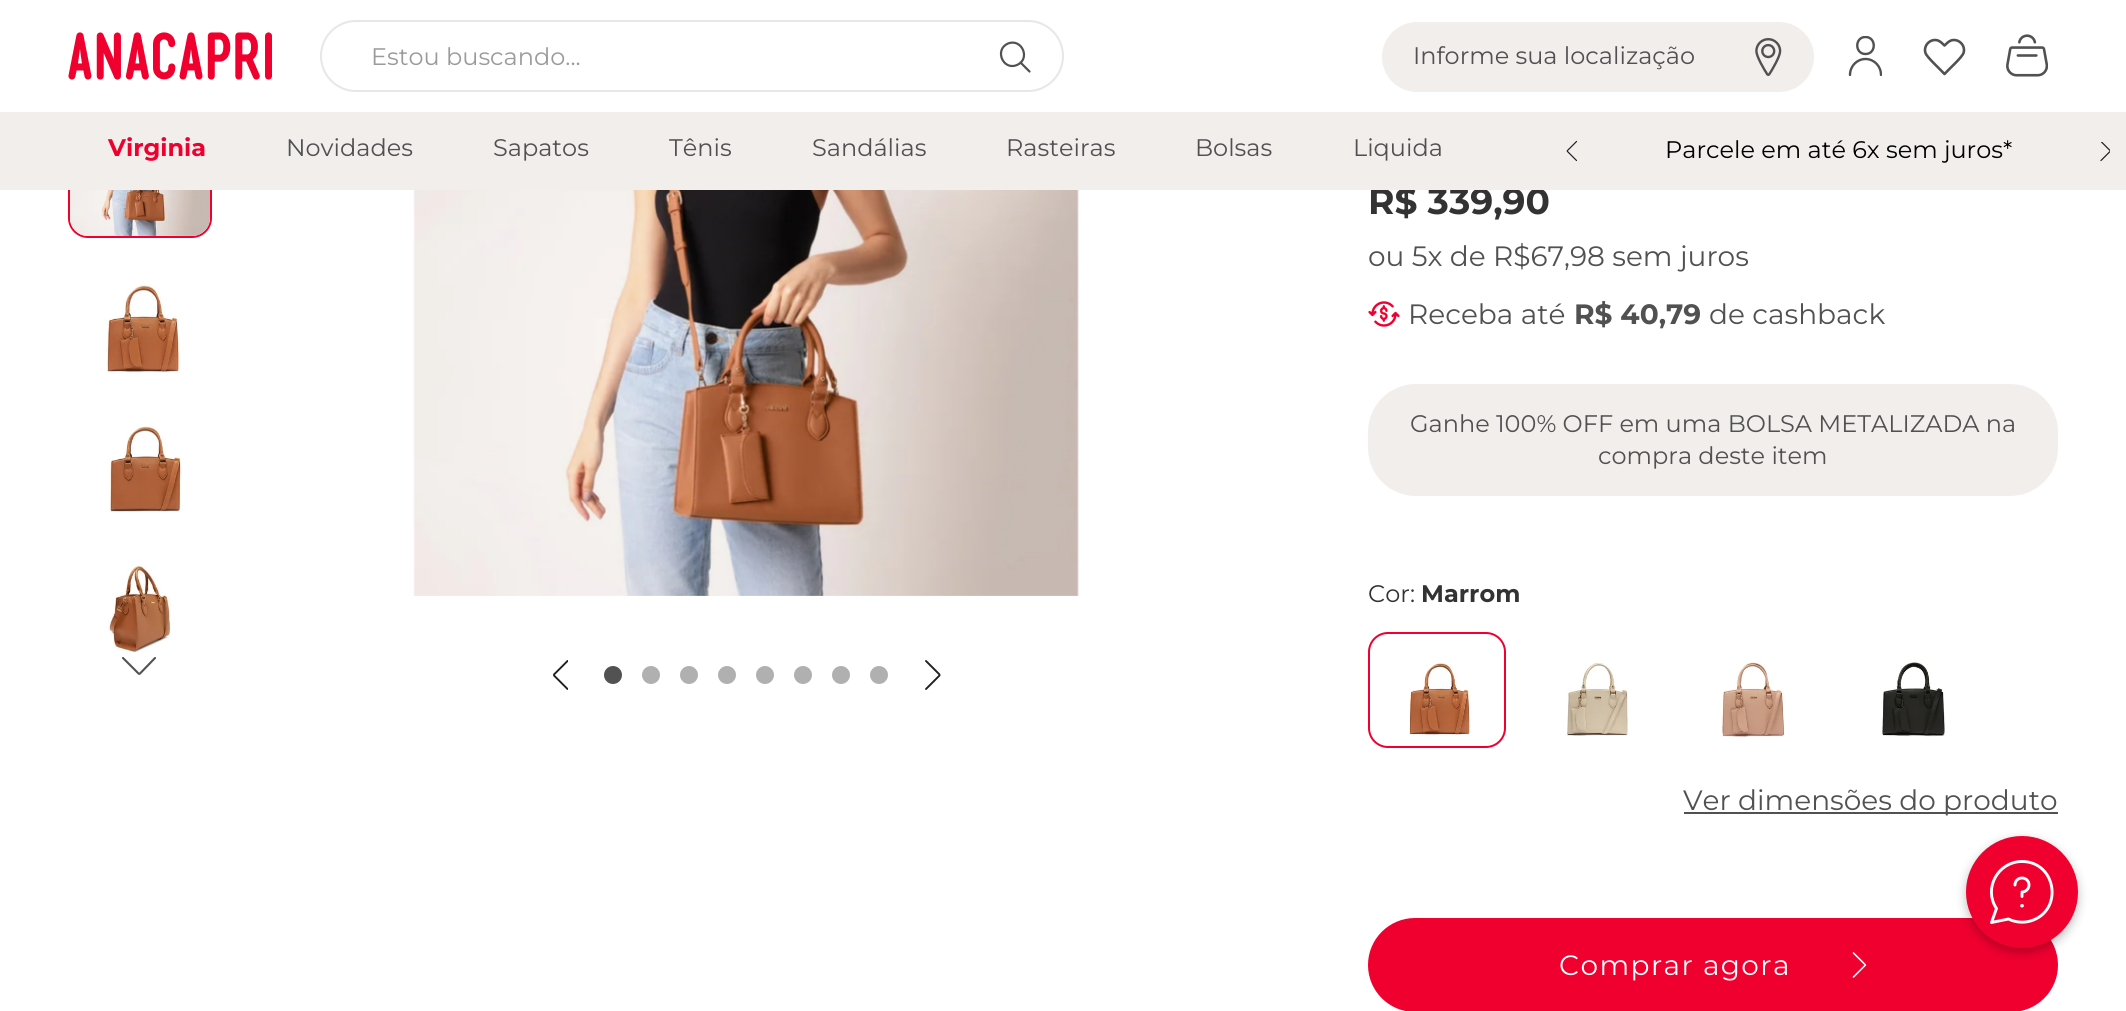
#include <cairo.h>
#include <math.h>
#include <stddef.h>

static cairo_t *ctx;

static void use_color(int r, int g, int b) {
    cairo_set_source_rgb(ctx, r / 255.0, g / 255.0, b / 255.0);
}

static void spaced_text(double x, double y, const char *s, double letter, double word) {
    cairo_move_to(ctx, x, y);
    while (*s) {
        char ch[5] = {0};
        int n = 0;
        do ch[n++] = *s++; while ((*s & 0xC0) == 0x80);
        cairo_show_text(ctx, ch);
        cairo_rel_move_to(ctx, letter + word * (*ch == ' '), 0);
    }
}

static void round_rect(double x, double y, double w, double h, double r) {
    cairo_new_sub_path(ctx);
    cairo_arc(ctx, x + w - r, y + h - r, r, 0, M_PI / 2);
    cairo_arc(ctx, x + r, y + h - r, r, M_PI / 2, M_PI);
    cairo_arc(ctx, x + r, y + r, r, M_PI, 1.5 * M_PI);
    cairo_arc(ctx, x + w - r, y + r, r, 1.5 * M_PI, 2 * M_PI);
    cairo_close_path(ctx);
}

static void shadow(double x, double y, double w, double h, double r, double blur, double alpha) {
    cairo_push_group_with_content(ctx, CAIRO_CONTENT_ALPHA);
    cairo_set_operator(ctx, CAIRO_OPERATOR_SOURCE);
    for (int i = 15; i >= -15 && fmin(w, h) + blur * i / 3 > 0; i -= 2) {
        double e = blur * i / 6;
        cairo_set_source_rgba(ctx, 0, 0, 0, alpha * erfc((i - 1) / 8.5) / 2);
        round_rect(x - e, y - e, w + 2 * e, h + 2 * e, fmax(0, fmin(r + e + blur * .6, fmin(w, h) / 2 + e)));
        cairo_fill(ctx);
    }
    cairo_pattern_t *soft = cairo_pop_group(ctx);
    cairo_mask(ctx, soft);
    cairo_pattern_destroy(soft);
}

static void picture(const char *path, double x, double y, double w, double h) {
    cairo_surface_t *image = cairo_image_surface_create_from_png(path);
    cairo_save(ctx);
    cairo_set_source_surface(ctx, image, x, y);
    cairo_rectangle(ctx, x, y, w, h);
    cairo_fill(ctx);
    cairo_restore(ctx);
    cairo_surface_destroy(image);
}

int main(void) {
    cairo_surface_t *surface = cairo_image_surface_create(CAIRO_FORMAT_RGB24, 2126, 1011);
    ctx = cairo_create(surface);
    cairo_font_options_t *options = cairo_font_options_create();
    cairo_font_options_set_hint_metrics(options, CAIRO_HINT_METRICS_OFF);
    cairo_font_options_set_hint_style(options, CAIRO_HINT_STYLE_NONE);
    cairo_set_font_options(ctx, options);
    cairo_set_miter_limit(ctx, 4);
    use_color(255, 255, 255);
    cairo_paint(ctx);
    picture("img1.png", 68, 32, 204, 48);
    round_rect(321, 21, 742, 70, 35);
    use_color(232, 230, 230);
    cairo_stroke(ctx);
    cairo_select_font_face(ctx, "Montserrat", CAIRO_FONT_SLANT_NORMAL, CAIRO_FONT_WEIGHT_NORMAL);
    cairo_set_font_size(ctx, 24);
    use_color(155, 155, 155);
    cairo_move_to(ctx, 371, 65);
    cairo_show_text(ctx, "Estou buscando...");
    cairo_new_path(ctx);
    cairo_move_to(ctx, 1017, 65);
    cairo_curve_to(ctx, 1031, 59, 1022, 38, 1008, 43.5);
    cairo_curve_to(ctx, 994, 49.5, 1003, 71, 1017, 65);
    cairo_close_path(ctx);
    cairo_move_to(ctx, 1020.5, 62.5);
    cairo_line_to(ctx, 1029.5, 71.5);
    use_color(81, 81, 81);
    cairo_set_line_width(ctx, 2.2);
    cairo_set_line_cap(ctx, CAIRO_LINE_CAP_ROUND);
    cairo_set_line_join(ctx, CAIRO_LINE_JOIN_ROUND);
    cairo_stroke(ctx);
    use_color(242, 238, 236);
    round_rect(1382, 22, 432, 70, 35);
    cairo_fill(ctx);
    use_color(81, 81, 81);
    cairo_move_to(ctx, 1413, 64);
    cairo_show_text(ctx, "Informe sua localização");
    picture("img2.png", 1755, 38, 27, 38);
    cairo_save(ctx);
    cairo_rectangle(ctx, 1848, 36, 34, 40);
    cairo_clip(ctx);
    cairo_new_path(ctx);
    cairo_move_to(ctx, 1865.5, 54);
    cairo_curve_to(ctx, 1876.5, 54, 1876.5, 37, 1865.5, 37);
    cairo_curve_to(ctx, 1854.5, 37, 1854.5, 54, 1865.5, 54);
    cairo_close_path(ctx);
    cairo_move_to(ctx, 1850, 75);
    cairo_curve_to(ctx, 1850, 66, 1857, 59, 1865.5, 59);
    cairo_curve_to(ctx, 1874, 59, 1881, 66, 1881, 75);
    cairo_set_line_width(ctx, 2.4);
    cairo_stroke(ctx);
    cairo_restore(ctx);
    cairo_new_path(ctx);
    cairo_move_to(ctx, 1944.5, 74);
    cairo_curve_to(ctx, 1940.5, 69.5, 1927, 57.5, 1925.5, 53);
    cairo_curve_to(ctx, 1923, 45.5, 1930.5, 38, 1938, 40.5);
    cairo_curve_to(ctx, 1940.5, 41.5, 1942.5, 43.5, 1944.5, 45.5);
    cairo_curve_to(ctx, 1946.5, 43.5, 1948.5, 41.5, 1951, 40.5);
    cairo_curve_to(ctx, 1958.5, 38, 1966, 45.5, 1963.5, 53);
    cairo_curve_to(ctx, 1962, 57.5, 1948.5, 69.5, 1944.5, 74);
    cairo_close_path(ctx);
    cairo_set_line_width(ctx, 2.6);
    cairo_stroke(ctx);
    picture("img3.png", 2006, 34, 42, 43);
    round_rect(69, 119, 142, 118, 19);
    use_color(239, 0, 47);
    cairo_set_line_width(ctx, 2);
    cairo_set_line_cap(ctx, CAIRO_LINE_CAP_BUTT);
    cairo_set_line_join(ctx, CAIRO_LINE_JOIN_MITER);
    cairo_stroke(ctx);
    cairo_select_font_face(ctx, "Montserrat", CAIRO_FONT_SLANT_NORMAL, CAIRO_FONT_WEIGHT_BOLD);
    cairo_set_font_size(ctx, 36);
    use_color(51, 51, 51);
    cairo_move_to(ctx, 1368, 214);
    cairo_show_text(ctx, "R$ 339,90");
    use_color(242, 238, 236);
    cairo_rectangle(ctx, 0, 112, 2126, 78);
    cairo_fill(ctx);
    cairo_set_font_size(ctx, 24);
    use_color(239, 0, 47);
    cairo_move_to(ctx, 108, 156);
    cairo_show_text(ctx, "Virginia");
    cairo_select_font_face(ctx, "Montserrat", CAIRO_FONT_SLANT_NORMAL, CAIRO_FONT_WEIGHT_NORMAL);
    use_color(81, 81, 81);
    cairo_move_to(ctx, 286, 156);
    cairo_show_text(ctx, "Novidades");
    cairo_move_to(ctx, 493, 156);
    cairo_show_text(ctx, "Sapatos");
    cairo_move_to(ctx, 669, 156);
    cairo_show_text(ctx, "Tênis");
    cairo_move_to(ctx, 812, 156);
    cairo_show_text(ctx, "Sandálias");
    cairo_move_to(ctx, 1006, 156);
    cairo_show_text(ctx, "Rasteiras");
    cairo_move_to(ctx, 1195, 156);
    cairo_show_text(ctx, "Bolsas");
    cairo_move_to(ctx, 1353, 156);
    cairo_show_text(ctx, "Liquida");
    cairo_new_path(ctx);
    cairo_move_to(ctx, 1576.5, 160.5);
    cairo_line_to(ctx, 1567.5, 151.5);
    cairo_curve_to(ctx, 1567, 151, 1567, 151, 1567.5, 150.5);
    cairo_line_to(ctx, 1576.5, 141.5);
    use_color(30, 30, 30);
    cairo_set_line_width(ctx, 1.2);
    cairo_set_line_cap(ctx, CAIRO_LINE_CAP_ROUND);
    cairo_set_line_join(ctx, CAIRO_LINE_JOIN_ROUND);
    cairo_stroke(ctx);
    use_color(0, 0, 0);
    cairo_move_to(ctx, 1665, 158);
    cairo_show_text(ctx, "Parcele em até 6x sem juros*");
    cairo_save(ctx);
    cairo_rectangle(ctx, 2100, 142, 10, 20);
    cairo_clip(ctx);
    cairo_new_path(ctx);
    cairo_move_to(ctx, 2101, 141.5);
    cairo_line_to(ctx, 2110, 150.5);
    cairo_curve_to(ctx, 2110.5, 151, 2110.5, 151, 2110, 151.5);
    cairo_line_to(ctx, 2101, 160.5);
    use_color(30, 30, 30);
    cairo_stroke(ctx);
    cairo_restore(ctx);
    picture("img4.png", 70, 190, 140, 46);
    picture("img5.png", 106, 284, 74, 92);
    picture("img6.png", 108, 424, 74, 88);
    picture("img7.png", 108, 564, 63, 88);
    cairo_new_path(ctx);
    cairo_move_to(ctx, 155, 658);
    cairo_line_to(ctx, 140, 673.5);
    cairo_curve_to(ctx, 139.5, 674, 139, 674, 138.5, 673.5);
    cairo_line_to(ctx, 123, 658);
    use_color(82, 82, 82);
    cairo_set_line_width(ctx, 2.1);
    cairo_stroke(ctx);
    picture("img8.png", 413, 190, 666, 406);
    cairo_save(ctx);
    cairo_rectangle(ctx, 552, 660, 16, 30);
    cairo_clip(ctx);
    cairo_new_path(ctx);
    cairo_move_to(ctx, 567.5, 689);
    cairo_line_to(ctx, 554, 675.5);
    cairo_curve_to(ctx, 554, 675.5, 554, 674.5, 554, 674.5);
    cairo_line_to(ctx, 567.5, 661);
    use_color(30, 30, 30);
    cairo_set_line_width(ctx, 1.9);
    cairo_stroke(ctx);
    cairo_restore(ctx);
    cairo_arc(ctx, 613, 675, 9, 0, 2 * M_PI);
    cairo_fill(ctx);
    use_color(176, 176, 176);
    cairo_arc(ctx, 651, 675, 9, 0, 2 * M_PI);
    cairo_fill(ctx);
    cairo_arc(ctx, 689, 675, 9, 0, 2 * M_PI);
    cairo_fill(ctx);
    cairo_arc(ctx, 727, 675, 9, 0, 2 * M_PI);
    cairo_fill(ctx);
    cairo_arc(ctx, 765, 675, 9, 0, 2 * M_PI);
    cairo_fill(ctx);
    cairo_arc(ctx, 803, 675, 9, 0, 2 * M_PI);
    cairo_fill(ctx);
    cairo_arc(ctx, 841, 675, 9, 0, 2 * M_PI);
    cairo_fill(ctx);
    cairo_arc(ctx, 879, 675, 9, 0, 2 * M_PI);
    cairo_fill(ctx);
    cairo_new_path(ctx);
    cairo_move_to(ctx, 926, 661);
    cairo_line_to(ctx, 939.5, 674.5);
    cairo_curve_to(ctx, 939.5, 674.5, 939.5, 675.5, 939.5, 675.5);
    cairo_line_to(ctx, 926, 689);
    use_color(30, 30, 30);
    cairo_set_line_width(ctx, 1.9);
    cairo_stroke(ctx);
    cairo_set_font_size(ctx, 28);
    use_color(81, 81, 81);
    cairo_move_to(ctx, 1368, 266);
    cairo_show_text(ctx, "ou 5x de R$67,98 sem juros");
    picture("img9.png", 1368, 301, 32, 26);
    cairo_move_to(ctx, 1408, 324);
    cairo_show_text(ctx, "Receba até");
    cairo_select_font_face(ctx, "Montserrat", CAIRO_FONT_SLANT_NORMAL, CAIRO_FONT_WEIGHT_BOLD);
    cairo_move_to(ctx, 1574, 324);
    cairo_show_text(ctx, "R$ 40,79");
    cairo_select_font_face(ctx, "Montserrat", CAIRO_FONT_SLANT_NORMAL, CAIRO_FONT_WEIGHT_NORMAL);
    cairo_move_to(ctx, 1709, 324);
    cairo_show_text(ctx, "de cashback");
    use_color(242, 238, 236);
    round_rect(1368, 384, 690, 112, 48);
    cairo_fill(ctx);
    cairo_set_font_size(ctx, 24);
    use_color(81, 81, 81);
    cairo_move_to(ctx, 1410, 432);
    cairo_show_text(ctx, "Ganhe 100% OFF em uma BOLSA METALIZADA na");
    cairo_move_to(ctx, 1598, 464);
    cairo_show_text(ctx, "compra deste item");
    use_color(51, 51, 51);
    cairo_move_to(ctx, 1368, 602);
    cairo_show_text(ctx, "Cor:");
    cairo_select_font_face(ctx, "Montserrat", CAIRO_FONT_SLANT_NORMAL, CAIRO_FONT_WEIGHT_BOLD);
    cairo_move_to(ctx, 1421, 602);
    cairo_show_text(ctx, "Marrom");
    round_rect(1369, 633, 136, 114, 19);
    use_color(239, 0, 47);
    cairo_set_line_width(ctx, 2);
    cairo_set_line_cap(ctx, CAIRO_LINE_CAP_BUTT);
    cairo_set_line_join(ctx, CAIRO_LINE_JOIN_MITER);
    cairo_stroke(ctx);
    picture("img10.png", 1409, 662, 62, 76);
    picture("img11.png", 1566, 662, 64, 74);
    picture("img12.png", 1721, 662, 64, 76);
    picture("img13.png", 1881, 661, 65, 76);
    use_color(81, 81, 81);
    cairo_rectangle(ctx, 1684, 812, 374, 2);
    cairo_fill(ctx);
    cairo_select_font_face(ctx, "Montserrat", CAIRO_FONT_SLANT_NORMAL, CAIRO_FONT_WEIGHT_NORMAL);
    cairo_set_font_size(ctx, 28);
    cairo_move_to(ctx, 1683, 810);
    cairo_show_text(ctx, "Ver dimensões do produto");
    use_color(239, 0, 47);
    round_rect(1369, 919, 688, 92, 46);
    cairo_fill_preserve(ctx);
    cairo_stroke(ctx);
    use_color(255, 255, 255);
    spaced_text(1559, 975, "Comprar agora", 1.4, 0);
    cairo_new_path(ctx);
    cairo_move_to(ctx, 1853.5, 953);
    cairo_line_to(ctx, 1865, 964.5);
    cairo_curve_to(ctx, 1865.5, 964.5, 1865.5, 965.5, 1865, 965.5);
    cairo_line_to(ctx, 1853.5, 977);
    cairo_set_line_width(ctx, 1.6);
    cairo_set_line_cap(ctx, CAIRO_LINE_CAP_ROUND);
    cairo_set_line_join(ctx, CAIRO_LINE_JOIN_ROUND);
    cairo_stroke(ctx);
    use_color(0, 0, 0);
    shadow(1966, 840, 112, 112, 56, 5, 0.26);
    use_color(239, 0, 47);
    cairo_arc(ctx, 2022, 892, 56, 0, 2 * M_PI);
    cairo_fill(ctx);
    cairo_new_path(ctx);
    cairo_move_to(ctx, 2022, 861.5);
    cairo_curve_to(ctx, 1998, 861.5, 1983, 888.5, 1996.5, 908.5);
    cairo_line_to(ctx, 1991.5, 922.5);
    cairo_line_to(ctx, 2008.5, 919);
    cairo_curve_to(ctx, 2015.5, 922.5, 2023.5, 923, 2030.5, 921);
    cairo_curve_to(ctx, 2064, 911, 2056.5, 861.5, 2022, 861.5);
    cairo_close_path(ctx);
    use_color(255, 255, 255);
    cairo_set_line_width(ctx, 2.9);
    cairo_stroke(ctx);
    cairo_new_path(ctx);
    cairo_move_to(ctx, 2015, 885);
    cairo_curve_to(ctx, 2015, 881, 2018, 878, 2022, 878);
    cairo_curve_to(ctx, 2026, 878, 2029, 881, 2029, 885);
    cairo_curve_to(ctx, 2029, 888.5, 2026, 892, 2022, 892);
    cairo_line_to(ctx, 2022, 896.5);
    cairo_stroke(ctx);
    cairo_new_path(ctx);
    cairo_move_to(ctx, 2022, 907.5);
    cairo_curve_to(ctx, 2019.5, 907.5, 2019.5, 904, 2022, 904);
    cairo_move_to(ctx, 2022, 907.5);
    cairo_curve_to(ctx, 2024.5, 907.5, 2024.5, 904, 2022, 904);
    cairo_fill(ctx);
    cairo_surface_write_to_png(surface, "result.png");
    cairo_font_options_destroy(options);
    cairo_destroy(ctx);
    cairo_surface_destroy(surface);
    return 0;
}
